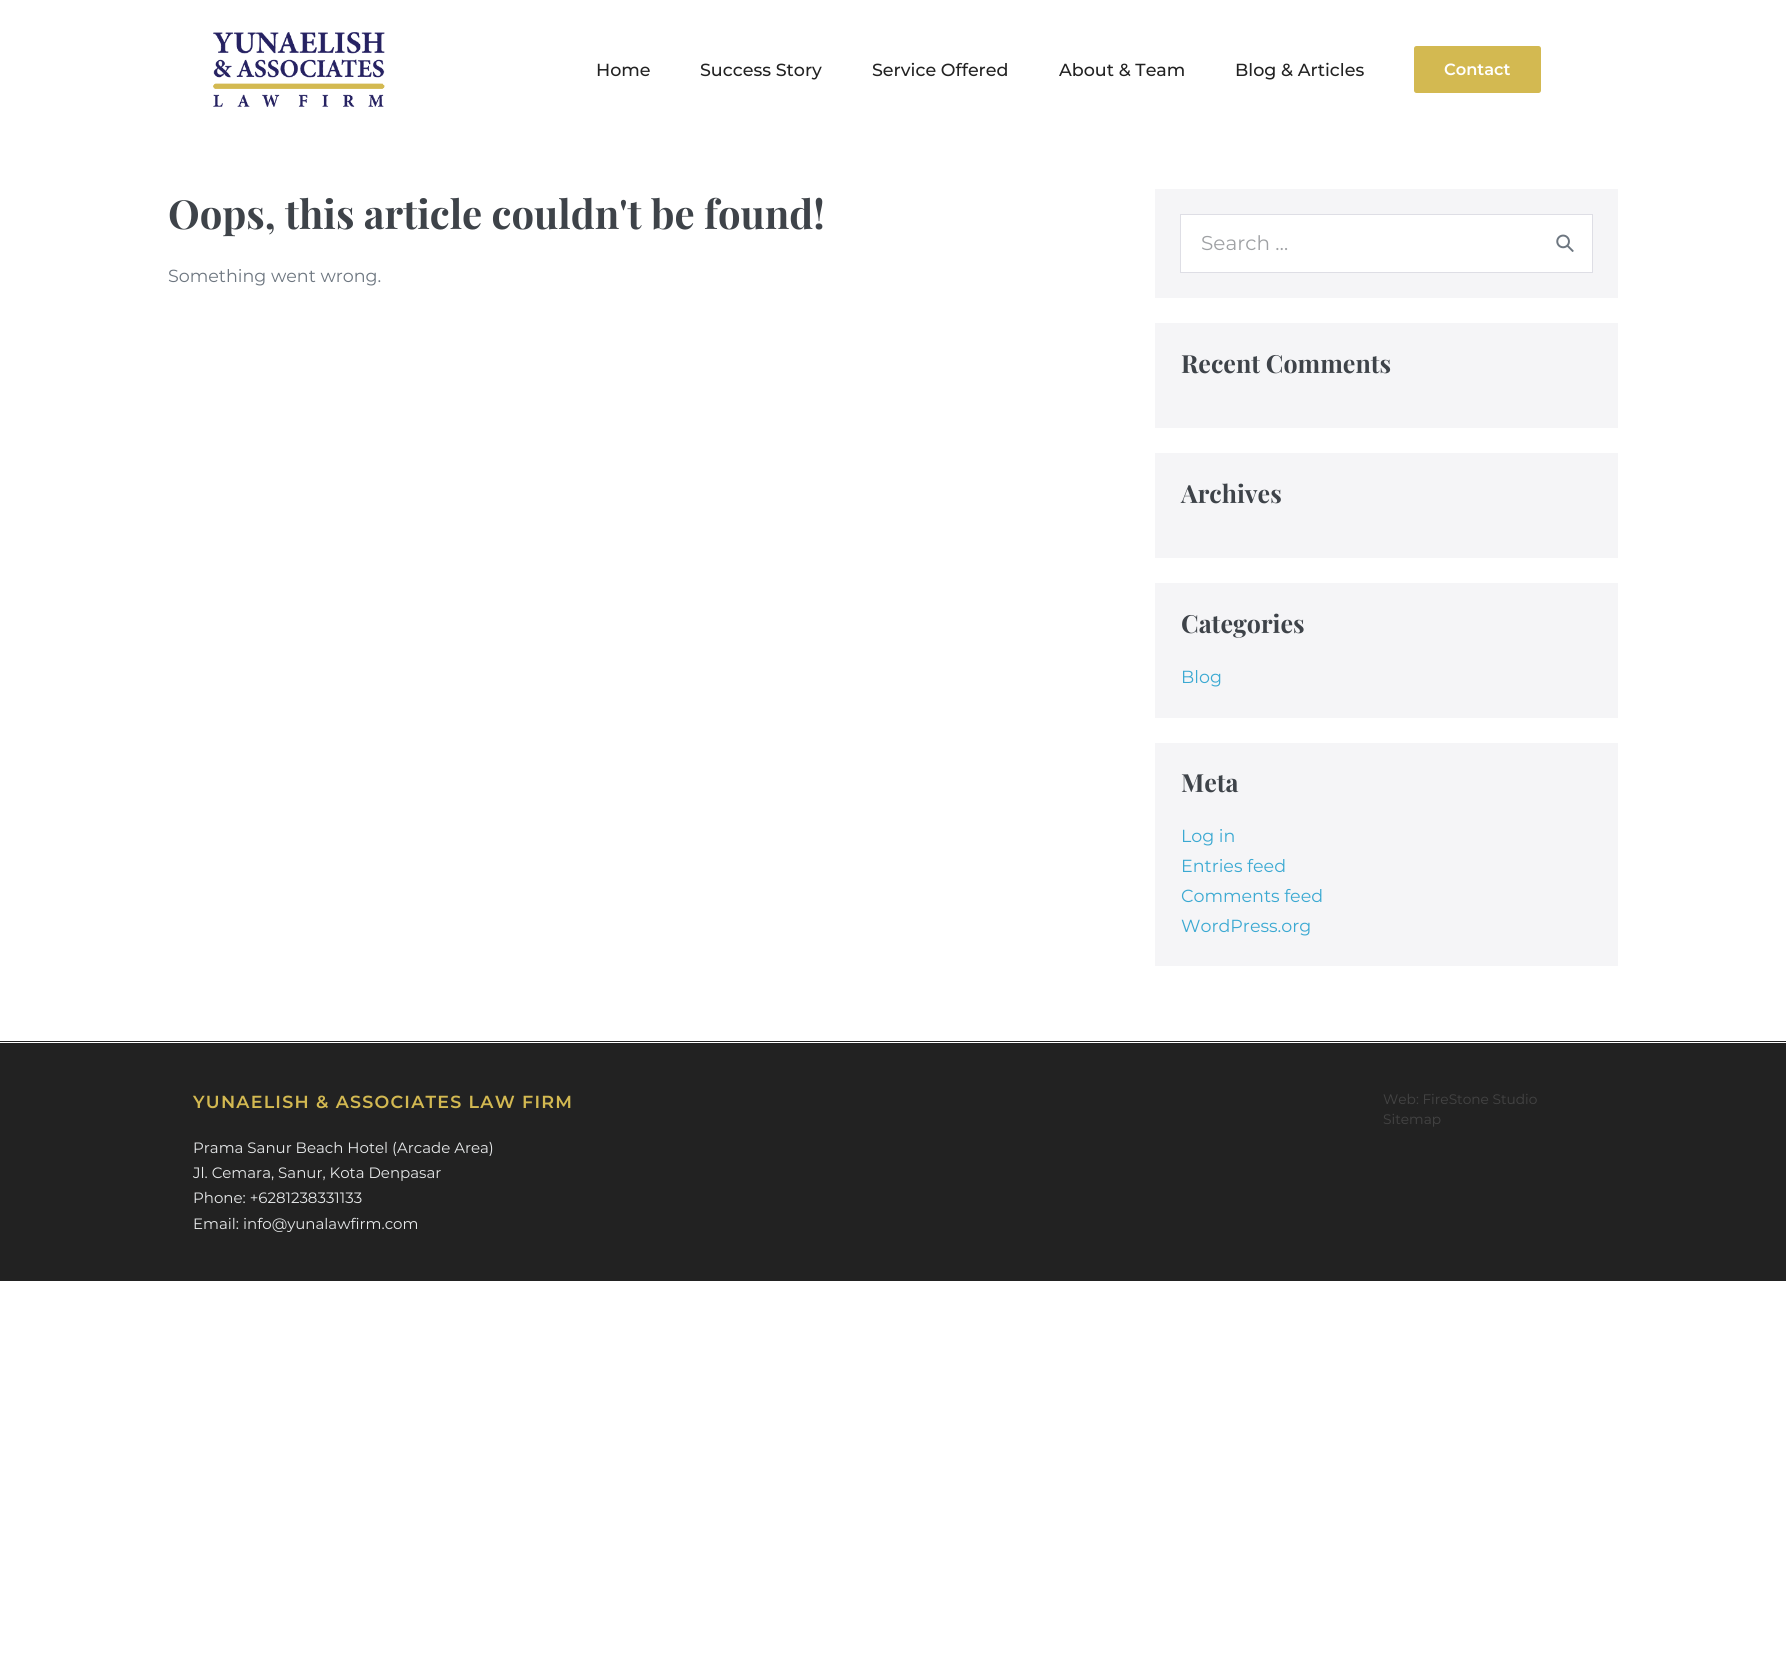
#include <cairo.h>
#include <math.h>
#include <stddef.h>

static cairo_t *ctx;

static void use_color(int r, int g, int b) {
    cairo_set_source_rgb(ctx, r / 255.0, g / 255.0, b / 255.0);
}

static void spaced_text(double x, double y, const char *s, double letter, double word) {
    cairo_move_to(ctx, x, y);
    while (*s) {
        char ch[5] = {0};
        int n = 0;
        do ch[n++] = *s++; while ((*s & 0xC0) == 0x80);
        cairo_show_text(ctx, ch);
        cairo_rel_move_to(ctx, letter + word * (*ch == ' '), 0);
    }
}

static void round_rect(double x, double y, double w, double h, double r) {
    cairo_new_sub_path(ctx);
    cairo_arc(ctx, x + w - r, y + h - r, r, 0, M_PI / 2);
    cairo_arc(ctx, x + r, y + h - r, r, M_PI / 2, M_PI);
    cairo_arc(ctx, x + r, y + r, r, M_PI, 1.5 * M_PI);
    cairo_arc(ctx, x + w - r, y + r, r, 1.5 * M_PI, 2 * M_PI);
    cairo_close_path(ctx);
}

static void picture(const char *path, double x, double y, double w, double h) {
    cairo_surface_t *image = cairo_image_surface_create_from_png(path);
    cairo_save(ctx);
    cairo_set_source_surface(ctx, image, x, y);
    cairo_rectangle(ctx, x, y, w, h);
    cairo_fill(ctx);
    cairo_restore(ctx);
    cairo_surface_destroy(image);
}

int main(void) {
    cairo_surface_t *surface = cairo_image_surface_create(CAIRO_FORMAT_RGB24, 1786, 1666);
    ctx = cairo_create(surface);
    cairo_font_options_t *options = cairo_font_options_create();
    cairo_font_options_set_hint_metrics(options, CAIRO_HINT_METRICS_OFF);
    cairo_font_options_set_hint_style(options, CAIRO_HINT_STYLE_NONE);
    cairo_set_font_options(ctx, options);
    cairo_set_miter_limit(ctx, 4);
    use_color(255, 255, 255);
    cairo_paint(ctx);
    picture("img1.png", 213, 32, 172, 75);
    cairo_select_font_face(ctx, "Montserrat Medium", CAIRO_FONT_SLANT_NORMAL, CAIRO_FONT_WEIGHT_NORMAL);
    cairo_set_font_size(ctx, 17.5);
    use_color(34, 34, 34);
    cairo_move_to(ctx, 596, 76);
    cairo_show_text(ctx, "Home");
    cairo_move_to(ctx, 700, 76);
    cairo_show_text(ctx, "Success Story");
    cairo_move_to(ctx, 872, 76);
    cairo_show_text(ctx, "Service Offered");
    cairo_move_to(ctx, 1059, 76);
    cairo_show_text(ctx, "About & Team");
    cairo_move_to(ctx, 1235, 76);
    cairo_show_text(ctx, "Blog & Articles");
    use_color(211, 185, 81);
    round_rect(1414, 46, 127, 47, 2.5);
    cairo_fill(ctx);
    cairo_select_font_face(ctx, "Montserrat SemiBold", CAIRO_FONT_SLANT_NORMAL, CAIRO_FONT_WEIGHT_NORMAL);
    cairo_set_font_size(ctx, 16.25);
    use_color(255, 255, 255);
    cairo_move_to(ctx, 1444, 75);
    cairo_show_text(ctx, "Contact");
    cairo_select_font_face(ctx, "Playfair Display", CAIRO_FONT_SLANT_NORMAL, CAIRO_FONT_WEIGHT_BOLD);
    cairo_set_font_size(ctx, 40);
    use_color(62, 67, 73);
    cairo_move_to(ctx, 168, 229);
    cairo_show_text(ctx, "Oops, this article couldn't be found!");
    cairo_select_font_face(ctx, "Montserrat", CAIRO_FONT_SLANT_NORMAL, CAIRO_FONT_WEIGHT_NORMAL);
    cairo_set_font_size(ctx, 17.5);
    use_color(109, 118, 128);
    cairo_move_to(ctx, 168, 282);
    cairo_show_text(ctx, "Something went wrong.");
    use_color(245, 245, 247);
    cairo_rectangle(ctx, 1155, 189, 463, 109);
    cairo_fill(ctx);
    use_color(255, 255, 255);
    cairo_rectangle(ctx, 1180.5, 214.5, 412, 58);
    cairo_fill_preserve(ctx);
    use_color(222, 222, 229);
    cairo_set_line_width(ctx, 1);
    cairo_stroke(ctx);
    cairo_set_font_size(ctx, 20);
    use_color(159, 161, 164);
    cairo_move_to(ctx, 1201, 250);
    cairo_show_text(ctx, "Search …");
    picture("img2.png", 1556, 234, 18, 18);
    use_color(245, 245, 247);
    cairo_rectangle(ctx, 1155, 323, 463, 105);
    cairo_fill(ctx);
    cairo_select_font_face(ctx, "Playfair Display", CAIRO_FONT_SLANT_NORMAL, CAIRO_FONT_WEIGHT_BOLD);
    cairo_set_font_size(ctx, 25);
    use_color(62, 67, 73);
    cairo_move_to(ctx, 1181, 373);
    cairo_show_text(ctx, "Recent Comments");
    use_color(245, 245, 247);
    cairo_rectangle(ctx, 1155, 453, 463, 105);
    cairo_fill(ctx);
    use_color(62, 67, 73);
    cairo_move_to(ctx, 1181, 503);
    cairo_show_text(ctx, "Archives");
    use_color(245, 245, 247);
    cairo_rectangle(ctx, 1155, 583, 463, 135);
    cairo_fill(ctx);
    use_color(62, 67, 73);
    cairo_move_to(ctx, 1181, 633);
    cairo_show_text(ctx, "Categories");
    cairo_select_font_face(ctx, "Montserrat", CAIRO_FONT_SLANT_NORMAL, CAIRO_FONT_WEIGHT_NORMAL);
    cairo_set_font_size(ctx, 17.5);
    use_color(59, 169, 210);
    cairo_move_to(ctx, 1181, 683);
    cairo_show_text(ctx, "Blog");
    use_color(245, 245, 247);
    cairo_rectangle(ctx, 1155, 743, 463, 223);
    cairo_fill(ctx);
    cairo_select_font_face(ctx, "Playfair Display", CAIRO_FONT_SLANT_NORMAL, CAIRO_FONT_WEIGHT_BOLD);
    cairo_set_font_size(ctx, 25);
    use_color(62, 67, 73);
    cairo_move_to(ctx, 1181, 792);
    cairo_show_text(ctx, "Meta");
    cairo_select_font_face(ctx, "Montserrat", CAIRO_FONT_SLANT_NORMAL, CAIRO_FONT_WEIGHT_NORMAL);
    cairo_set_font_size(ctx, 17.5);
    use_color(59, 169, 210);
    cairo_move_to(ctx, 1181, 842);
    cairo_show_text(ctx, "Log in");
    cairo_move_to(ctx, 1181, 872);
    cairo_show_text(ctx, "Entries feed");
    cairo_move_to(ctx, 1181, 902);
    cairo_show_text(ctx, "Comments feed");
    cairo_move_to(ctx, 1181, 932);
    cairo_show_text(ctx, "WordPress.org");
    use_color(34, 34, 34);
    cairo_rectangle(ctx, 0, 1043, 1786, 238);
    cairo_fill(ctx);
    cairo_rectangle(ctx, 0, 1041, 1786, 1);
    cairo_fill(ctx);
    cairo_select_font_face(ctx, "Montserrat SemiBold", CAIRO_FONT_SLANT_NORMAL, CAIRO_FONT_WEIGHT_NORMAL);
    use_color(211, 185, 81);
    spaced_text(193, 1108, "YUNAELISH & ASSOCIATES LAW FIRM", 1.25, 0);
    cairo_select_font_face(ctx, "Montserrat", CAIRO_FONT_SLANT_NORMAL, CAIRO_FONT_WEIGHT_NORMAL);
    cairo_set_font_size(ctx, 15);
    use_color(231, 233, 234);
    cairo_move_to(ctx, 193, 1153);
    cairo_show_text(ctx, "Prama Sanur Beach Hotel (Arcade Area)");
    cairo_move_to(ctx, 193, 1178);
    cairo_show_text(ctx, "Jl. Cemara, Sanur, Kota Denpasar");
    cairo_move_to(ctx, 193, 1203);
    cairo_show_text(ctx, "Phone: +6281238331133");
    cairo_move_to(ctx, 193, 1229);
    cairo_show_text(ctx, "Email: info@yunalawfirm.com");
    cairo_set_font_size(ctx, 13.75);
    use_color(68, 68, 68);
    cairo_move_to(ctx, 1383, 1104);
    cairo_show_text(ctx, "Web: FireStone Studio");
    cairo_move_to(ctx, 1383, 1124);
    cairo_show_text(ctx, "Sitemap");
    cairo_surface_write_to_png(surface, "result.png");
    cairo_font_options_destroy(options);
    cairo_destroy(ctx);
    cairo_surface_destroy(surface);
    return 0;
}
